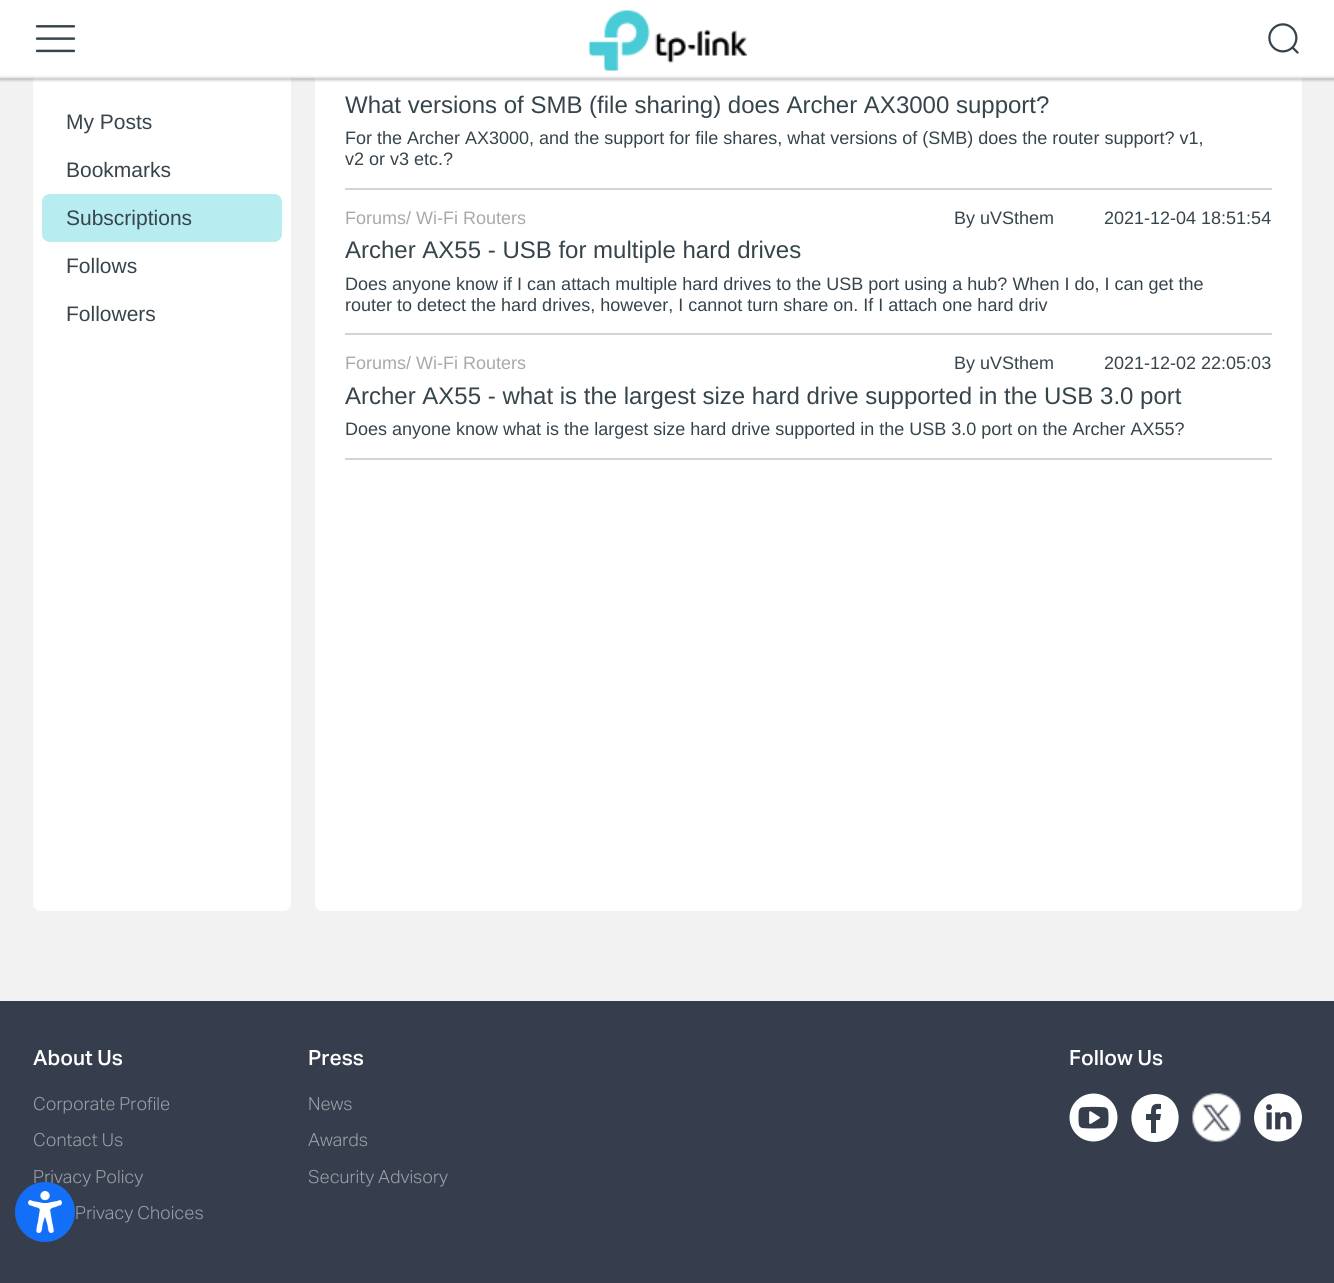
#include <cairo.h>
#include <math.h>
#include <stddef.h>

static cairo_t *ctx;

static void use_color(int r, int g, int b) {
    cairo_set_source_rgb(ctx, r / 255.0, g / 255.0, b / 255.0);
}

static void round_rect(double x, double y, double w, double h, double r) {
    cairo_new_sub_path(ctx);
    cairo_arc(ctx, x + w - r, y + h - r, r, 0, M_PI / 2);
    cairo_arc(ctx, x + r, y + h - r, r, M_PI / 2, M_PI);
    cairo_arc(ctx, x + r, y + r, r, M_PI, 1.5 * M_PI);
    cairo_arc(ctx, x + w - r, y + r, r, 1.5 * M_PI, 2 * M_PI);
    cairo_close_path(ctx);
}

static void shadow(double x, double y, double w, double h, double r, double blur, double alpha) {
    cairo_push_group_with_content(ctx, CAIRO_CONTENT_ALPHA);
    cairo_set_operator(ctx, CAIRO_OPERATOR_SOURCE);
    for (int i = 15; i >= -15 && fmin(w, h) + blur * i / 3 > 0; i -= 2) {
        double e = blur * i / 6;
        cairo_set_source_rgba(ctx, 0, 0, 0, alpha * erfc((i - 1) / 8.5) / 2);
        round_rect(x - e, y - e, w + 2 * e, h + 2 * e, fmax(0, fmin(r + e + blur * .6, fmin(w, h) / 2 + e)));
        cairo_fill(ctx);
    }
    cairo_pattern_t *soft = cairo_pop_group(ctx);
    cairo_mask(ctx, soft);
    cairo_pattern_destroy(soft);
}

static void picture(const char *path, double x, double y, double w, double h) {
    cairo_surface_t *image = cairo_image_surface_create_from_png(path);
    cairo_save(ctx);
    cairo_set_source_surface(ctx, image, x, y);
    cairo_rectangle(ctx, x, y, w, h);
    cairo_fill(ctx);
    cairo_restore(ctx);
    cairo_surface_destroy(image);
}

int main(void) {
    cairo_surface_t *surface = cairo_image_surface_create(CAIRO_FORMAT_RGB24, 1334, 1283);
    ctx = cairo_create(surface);
    cairo_font_options_t *options = cairo_font_options_create();
    cairo_font_options_set_hint_metrics(options, CAIRO_HINT_METRICS_OFF);
    cairo_font_options_set_hint_style(options, CAIRO_HINT_STYLE_NONE);
    cairo_set_font_options(ctx, options);
    cairo_set_miter_limit(ctx, 4);
    use_color(242, 242, 242);
    cairo_paint(ctx);
    use_color(255, 255, 255);
    round_rect(33, 32, 258, 879, 8);
    cairo_fill(ctx);
    round_rect(33, 32, 258, 324, 8);
    cairo_fill(ctx);
    round_rect(315, 32, 987, 879, 8);
    cairo_fill(ctx);
    cairo_rectangle(ctx, 0, 0, 1334, 78);
    cairo_fill(ctx);
    picture("img1.png", 35, 25, 41, 28);
    picture("img2.png", 589, 10, 158, 61);
    picture("img3.png", 1268, 23, 31, 31);
    use_color(33, 33, 33);
    shadow(0, 78, 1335, 2, 0, 1.5, 0.3);
    cairo_select_font_face(ctx, "Liberation Sans", CAIRO_FONT_SLANT_NORMAL, CAIRO_FONT_WEIGHT_NORMAL);
    cairo_set_font_size(ctx, 21);
    use_color(54, 68, 75);
    cairo_move_to(ctx, 66, 129);
    cairo_show_text(ctx, "My Posts");
    cairo_move_to(ctx, 66, 177);
    cairo_show_text(ctx, "Bookmarks");
    use_color(183, 236, 240);
    round_rect(42, 194, 240, 48, 8);
    cairo_fill(ctx);
    use_color(54, 68, 75);
    cairo_move_to(ctx, 66, 225);
    cairo_show_text(ctx, "Subscriptions");
    cairo_move_to(ctx, 66, 273);
    cairo_show_text(ctx, "Follows");
    cairo_move_to(ctx, 66, 321);
    cairo_show_text(ctx, "Followers");
    use_color(211, 212, 213);
    cairo_rectangle(ctx, 345, 188, 927, 2);
    cairo_fill(ctx);
    cairo_set_font_size(ctx, 24);
    use_color(54, 68, 75);
    cairo_move_to(ctx, 345, 113);
    cairo_show_text(ctx, "What versions of SMB (file sharing) does Archer AX3000 support?");
    cairo_set_font_size(ctx, 18);
    cairo_move_to(ctx, 345, 144);
    cairo_show_text(ctx, "For the Archer AX3000, and the support for file shares, what versions of (SMB) does the router support? v1,");
    cairo_move_to(ctx, 345, 165);
    cairo_show_text(ctx, "v2 or v3 etc.?");
    use_color(211, 212, 213);
    cairo_rectangle(ctx, 345, 333, 927, 2);
    cairo_fill(ctx);
    use_color(167, 169, 172);
    cairo_move_to(ctx, 345, 224);
    cairo_show_text(ctx, "Forums/ Wi-Fi Routers");
    use_color(54, 68, 75);
    cairo_move_to(ctx, 954, 224);
    cairo_show_text(ctx, "By uVSthem");
    cairo_move_to(ctx, 1104, 224);
    cairo_show_text(ctx, "2021-12-04 18:51:54");
    cairo_set_font_size(ctx, 24);
    cairo_move_to(ctx, 345, 258);
    cairo_show_text(ctx, "Archer AX55 - USB for multiple hard drives");
    cairo_set_font_size(ctx, 18);
    cairo_move_to(ctx, 345, 290);
    cairo_show_text(ctx, "Does anyone know if I can attach multiple hard drives to the USB port using a hub? When I do, I can get the");
    cairo_move_to(ctx, 345, 311);
    cairo_show_text(ctx, "router to detect the hard drives, however, I cannot turn share on. If I attach one hard driv");
    use_color(211, 212, 213);
    cairo_rectangle(ctx, 345, 458, 927, 2);
    cairo_fill(ctx);
    use_color(167, 169, 172);
    cairo_move_to(ctx, 345, 369);
    cairo_show_text(ctx, "Forums/ Wi-Fi Routers");
    use_color(54, 68, 75);
    cairo_move_to(ctx, 954, 369);
    cairo_show_text(ctx, "By uVSthem");
    cairo_move_to(ctx, 1104, 369);
    cairo_show_text(ctx, "2021-12-02 22:05:03");
    cairo_set_font_size(ctx, 24);
    cairo_move_to(ctx, 345, 404);
    cairo_show_text(ctx, "Archer AX55 - what is the largest size hard drive supported in the USB 3.0 port");
    cairo_set_font_size(ctx, 18);
    cairo_move_to(ctx, 345, 435);
    cairo_show_text(ctx, "Does anyone know what is the largest size hard drive supported in the USB 3.0 port on the Archer AX55?");
    use_color(54, 62, 77);
    cairo_rectangle(ctx, 0, 1001, 1334, 282);
    cairo_fill(ctx);
    cairo_select_font_face(ctx, "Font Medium", CAIRO_FONT_SLANT_NORMAL, CAIRO_FONT_WEIGHT_NORMAL);
    cairo_set_font_size(ctx, 21);
    use_color(255, 255, 255);
    cairo_move_to(ctx, 33, 1065);
    cairo_show_text(ctx, "About Us");
    cairo_select_font_face(ctx, "Font Light", CAIRO_FONT_SLANT_NORMAL, CAIRO_FONT_WEIGHT_NORMAL);
    cairo_set_font_size(ctx, 18);
    use_color(160, 162, 168);
    cairo_move_to(ctx, 33, 1110);
    cairo_show_text(ctx, "Corporate Profile");
    cairo_move_to(ctx, 33, 1146);
    cairo_show_text(ctx, "Contact Us");
    cairo_move_to(ctx, 33, 1183);
    cairo_show_text(ctx, "Privacy Policy");
    cairo_move_to(ctx, 75, 1219);
    cairo_show_text(ctx, "Privacy Choices");
    cairo_select_font_face(ctx, "Font Medium", CAIRO_FONT_SLANT_NORMAL, CAIRO_FONT_WEIGHT_NORMAL);
    cairo_set_font_size(ctx, 21);
    use_color(255, 255, 255);
    cairo_move_to(ctx, 308, 1065);
    cairo_show_text(ctx, "Press");
    cairo_select_font_face(ctx, "Font Light", CAIRO_FONT_SLANT_NORMAL, CAIRO_FONT_WEIGHT_NORMAL);
    cairo_set_font_size(ctx, 18);
    use_color(160, 162, 168);
    cairo_move_to(ctx, 308, 1110);
    cairo_show_text(ctx, "News");
    cairo_move_to(ctx, 308, 1146);
    cairo_show_text(ctx, "Awards");
    cairo_move_to(ctx, 308, 1183);
    cairo_show_text(ctx, "Security Advisory");
    cairo_select_font_face(ctx, "Font Medium", CAIRO_FONT_SLANT_NORMAL, CAIRO_FONT_WEIGHT_NORMAL);
    cairo_set_font_size(ctx, 21);
    use_color(255, 255, 255);
    cairo_move_to(ctx, 1069, 1065);
    cairo_show_text(ctx, "Follow Us");
    picture("img4.png", 1069, 1093, 49, 49);
    cairo_new_path(ctx);
    cairo_move_to(ctx, 1155, 1094);
    cairo_curve_to(ctx, 1123, 1094, 1124, 1142, 1155, 1142);
    cairo_curve_to(ctx, 1186, 1142, 1187, 1094, 1155, 1094);
    cairo_close_path(ctx);
    cairo_move_to(ctx, 1161, 1109);
    cairo_curve_to(ctx, 1155, 1109, 1156, 1109, 1156, 1114);
    cairo_line_to(ctx, 1161, 1114);
    cairo_line_to(ctx, 1160, 1120);
    cairo_line_to(ctx, 1156, 1120);
    cairo_line_to(ctx, 1156, 1133);
    cairo_line_to(ctx, 1151, 1133);
    cairo_line_to(ctx, 1151, 1120);
    cairo_line_to(ctx, 1146, 1120);
    cairo_line_to(ctx, 1146, 1114);
    cairo_line_to(ctx, 1151, 1114);
    cairo_curve_to(ctx, 1151, 1106, 1152, 1103, 1161, 1104);
    cairo_close_path(ctx);
    cairo_fill(ctx);
    picture("img5.png", 1192, 1093, 49, 49);
    picture("img6.png", 1254, 1093, 48, 49);
    use_color(20, 111, 248);
    cairo_arc(ctx, 45, 1212, 30, 0, 2 * M_PI);
    cairo_fill(ctx);
    picture("img7.png", 28, 1191, 34, 42);
    cairo_surface_write_to_png(surface, "result.png");
    cairo_font_options_destroy(options);
    cairo_destroy(ctx);
    cairo_surface_destroy(surface);
    return 0;
}
